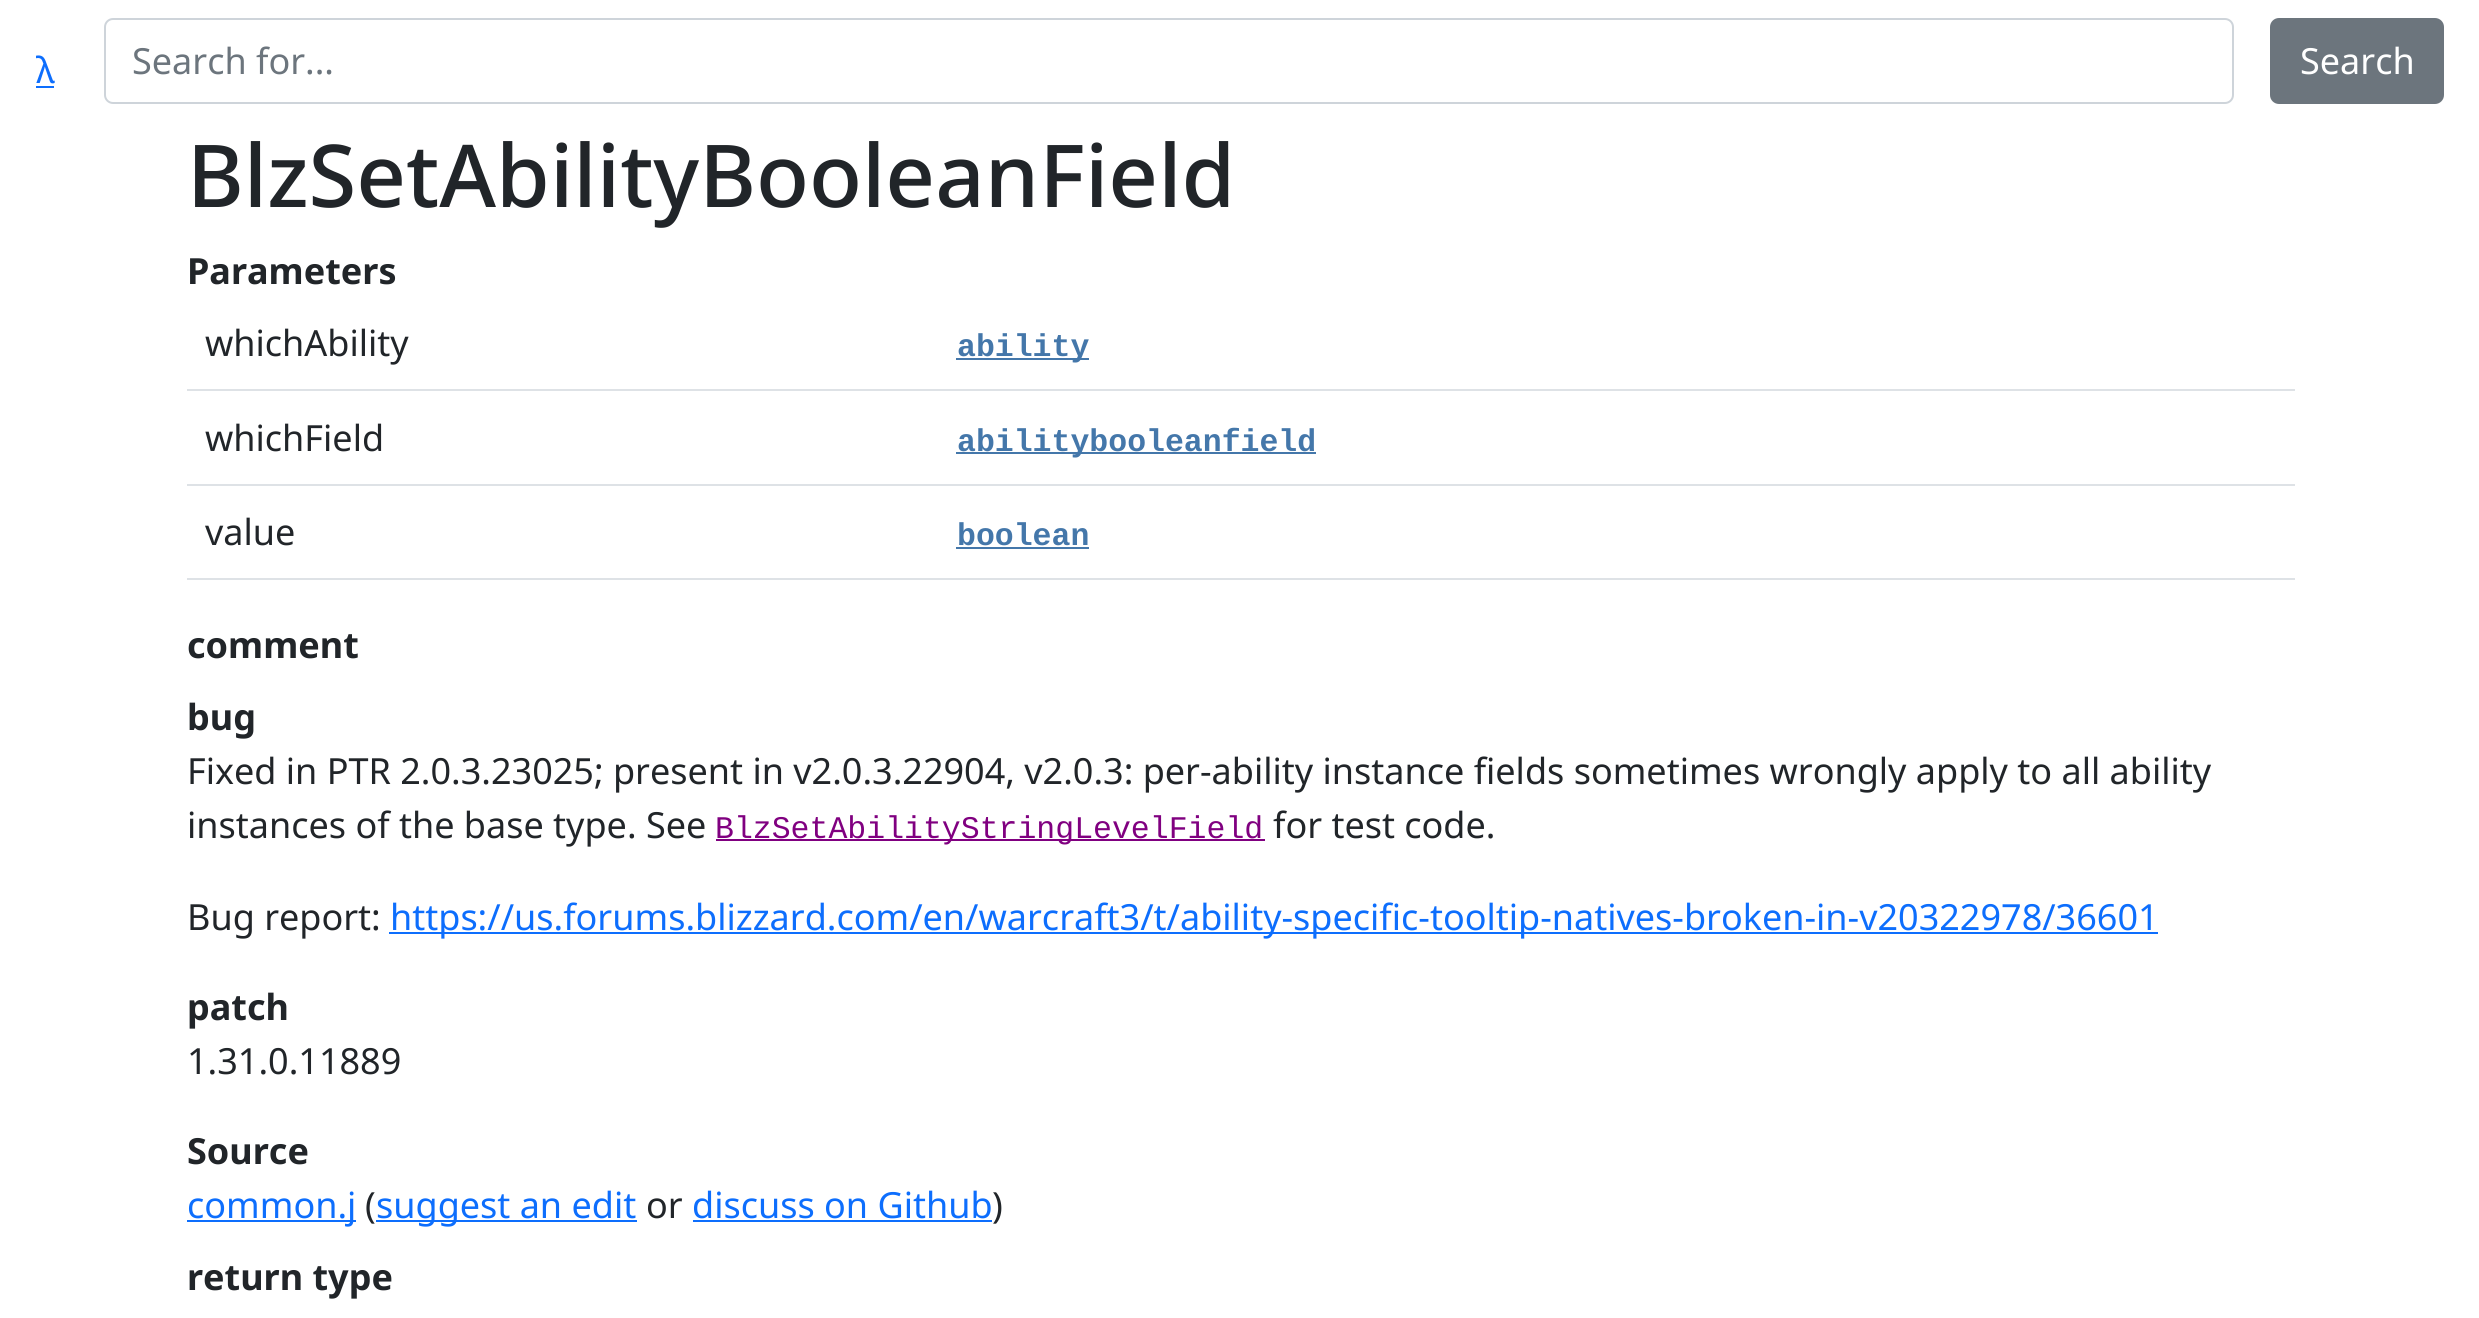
#include <cairo.h>
#include <math.h>
#include <stddef.h>

static cairo_t *ctx;

static void use_color(int r, int g, int b) {
    cairo_set_source_rgb(ctx, r / 255.0, g / 255.0, b / 255.0);
}

static void round_rect(double x, double y, double w, double h, double r) {
    cairo_new_sub_path(ctx);
    cairo_arc(ctx, x + w - r, y + h - r, r, 0, M_PI / 2);
    cairo_arc(ctx, x + r, y + h - r, r, M_PI / 2, M_PI);
    cairo_arc(ctx, x + r, y + r, r, M_PI, 1.5 * M_PI);
    cairo_arc(ctx, x + w - r, y + r, r, 1.5 * M_PI, 2 * M_PI);
    cairo_close_path(ctx);
}

int main(void) {
    cairo_surface_t *surface = cairo_image_surface_create(CAIRO_FORMAT_RGB24, 2479, 1318);
    ctx = cairo_create(surface);
    cairo_font_options_t *options = cairo_font_options_create();
    cairo_font_options_set_hint_metrics(options, CAIRO_HINT_METRICS_OFF);
    cairo_font_options_set_hint_style(options, CAIRO_HINT_STYLE_NONE);
    cairo_set_font_options(ctx, options);
    cairo_set_miter_limit(ctx, 4);
    use_color(255, 255, 255);
    cairo_paint(ctx);
    cairo_select_font_face(ctx, "Noto Sans", CAIRO_FONT_SLANT_NORMAL, CAIRO_FONT_WEIGHT_NORMAL);
    cairo_set_font_size(ctx, 36);
    use_color(13, 110, 253);
    cairo_move_to(ctx, 36, 83);
    cairo_show_text(ctx, "λ");
    cairo_rectangle(ctx, 36, 86, 18, 2);
    cairo_fill(ctx);
    round_rect(105, 19, 2128, 84, 8);
    use_color(206, 212, 218);
    cairo_stroke(ctx);
    use_color(108, 117, 125);
    cairo_move_to(ctx, 132, 74);
    cairo_show_text(ctx, "Search for...");
    round_rect(2271, 19, 172, 84, 8);
    cairo_fill_preserve(ctx);
    cairo_stroke(ctx);
    use_color(255, 255, 255);
    cairo_move_to(ctx, 2300, 74);
    cairo_show_text(ctx, "Search");
    cairo_select_font_face(ctx, "Noto Sans Medium", CAIRO_FONT_SLANT_NORMAL, CAIRO_FONT_WEIGHT_NORMAL);
    cairo_set_font_size(ctx, 86.75);
    use_color(33, 37, 41);
    cairo_move_to(ctx, 187, 207);
    cairo_show_text(ctx, "BlzSetAbilityBooleanField");
    cairo_select_font_face(ctx, "Noto Sans", CAIRO_FONT_SLANT_NORMAL, CAIRO_FONT_WEIGHT_BOLD);
    cairo_set_font_size(ctx, 36);
    cairo_move_to(ctx, 187, 284);
    cairo_show_text(ctx, "Parameters");
    cairo_select_font_face(ctx, "Noto Sans", CAIRO_FONT_SLANT_NORMAL, CAIRO_FONT_WEIGHT_NORMAL);
    cairo_move_to(ctx, 205, 356);
    cairo_show_text(ctx, "whichAbility");
    use_color(68, 119, 170);
    cairo_rectangle(ctx, 956, 358, 133, 2);
    cairo_fill(ctx);
    cairo_select_font_face(ctx, "Liberation Mono", CAIRO_FONT_SLANT_NORMAL, CAIRO_FONT_WEIGHT_BOLD);
    cairo_set_font_size(ctx, 31.5);
    cairo_move_to(ctx, 957, 356);
    cairo_show_text(ctx, "ability");
    use_color(222, 226, 230);
    cairo_rectangle(ctx, 187, 389, 2108, 2);
    cairo_fill(ctx);
    cairo_select_font_face(ctx, "Noto Sans", CAIRO_FONT_SLANT_NORMAL, CAIRO_FONT_WEIGHT_NORMAL);
    cairo_set_font_size(ctx, 36);
    use_color(33, 37, 41);
    cairo_move_to(ctx, 205, 451);
    cairo_show_text(ctx, "whichField");
    use_color(68, 119, 170);
    cairo_rectangle(ctx, 956, 452, 360, 2);
    cairo_fill(ctx);
    cairo_select_font_face(ctx, "Liberation Mono", CAIRO_FONT_SLANT_NORMAL, CAIRO_FONT_WEIGHT_BOLD);
    cairo_set_font_size(ctx, 31.5);
    cairo_move_to(ctx, 957, 451);
    cairo_show_text(ctx, "abilitybooleanfield");
    use_color(222, 226, 230);
    cairo_rectangle(ctx, 187, 484, 2108, 2);
    cairo_fill(ctx);
    cairo_select_font_face(ctx, "Noto Sans", CAIRO_FONT_SLANT_NORMAL, CAIRO_FONT_WEIGHT_NORMAL);
    cairo_set_font_size(ctx, 36);
    use_color(33, 37, 41);
    cairo_move_to(ctx, 205, 545);
    cairo_show_text(ctx, "value");
    cairo_select_font_face(ctx, "Liberation Mono", CAIRO_FONT_SLANT_NORMAL, CAIRO_FONT_WEIGHT_BOLD);
    cairo_set_font_size(ctx, 31.5);
    use_color(68, 119, 170);
    cairo_move_to(ctx, 957, 545);
    cairo_show_text(ctx, "boolean");
    cairo_rectangle(ctx, 956, 547, 133, 2);
    cairo_fill(ctx);
    use_color(222, 226, 230);
    cairo_rectangle(ctx, 187, 578, 2108, 2);
    cairo_fill(ctx);
    cairo_select_font_face(ctx, "Noto Sans", CAIRO_FONT_SLANT_NORMAL, CAIRO_FONT_WEIGHT_BOLD);
    cairo_set_font_size(ctx, 36);
    use_color(33, 37, 41);
    cairo_move_to(ctx, 187, 658);
    cairo_show_text(ctx, "comment");
    cairo_move_to(ctx, 187, 730);
    cairo_show_text(ctx, "bug");
    cairo_select_font_face(ctx, "Noto Sans", CAIRO_FONT_SLANT_NORMAL, CAIRO_FONT_WEIGHT_NORMAL);
    cairo_move_to(ctx, 187, 784);
    cairo_show_text(ctx, "Fixed in PTR 2.0.3.23025; present in v2.0.3.22904, v2.0.3: per-ability instance fields sometimes wrongly apply to all ability");
    cairo_move_to(ctx, 187, 838);
    cairo_show_text(ctx, "instances of the base type. See");
    use_color(128, 0, 128);
    cairo_rectangle(ctx, 716, 839, 549, 2);
    cairo_fill(ctx);
    cairo_select_font_face(ctx, "Liberation Mono", CAIRO_FONT_SLANT_NORMAL, CAIRO_FONT_WEIGHT_NORMAL);
    cairo_set_font_size(ctx, 31.5);
    cairo_move_to(ctx, 715, 838);
    cairo_show_text(ctx, "BlzSetAbilityStringLevelField");
    cairo_select_font_face(ctx, "Noto Sans", CAIRO_FONT_SLANT_NORMAL, CAIRO_FONT_WEIGHT_NORMAL);
    cairo_set_font_size(ctx, 36);
    use_color(33, 37, 41);
    cairo_move_to(ctx, 1273, 838);
    cairo_show_text(ctx, "for test code.");
    cairo_move_to(ctx, 187, 930);
    cairo_show_text(ctx, "Bug report:");
    use_color(13, 110, 253);
    cairo_rectangle(ctx, 389, 932, 1769, 2);
    cairo_fill(ctx);
    cairo_move_to(ctx, 390, 930);
    cairo_show_text(ctx, "https://us.forums.blizzard.com/en/warcraft3/t/ability-specific-tooltip-natives-broken-in-v20322978/36601");
    cairo_select_font_face(ctx, "Noto Sans", CAIRO_FONT_SLANT_NORMAL, CAIRO_FONT_WEIGHT_BOLD);
    use_color(33, 37, 41);
    cairo_move_to(ctx, 187, 1020);
    cairo_show_text(ctx, "patch");
    cairo_select_font_face(ctx, "Noto Sans", CAIRO_FONT_SLANT_NORMAL, CAIRO_FONT_WEIGHT_NORMAL);
    cairo_move_to(ctx, 187, 1074);
    cairo_show_text(ctx, "1.31.0.11889");
    cairo_select_font_face(ctx, "Noto Sans", CAIRO_FONT_SLANT_NORMAL, CAIRO_FONT_WEIGHT_BOLD);
    cairo_move_to(ctx, 187, 1164);
    cairo_show_text(ctx, "Source");
    use_color(13, 110, 253);
    cairo_rectangle(ctx, 187, 1220, 169, 2);
    cairo_fill(ctx);
    cairo_select_font_face(ctx, "Noto Sans", CAIRO_FONT_SLANT_NORMAL, CAIRO_FONT_WEIGHT_NORMAL);
    cairo_move_to(ctx, 187, 1218);
    cairo_show_text(ctx, "common.j");
    use_color(33, 37, 41);
    cairo_move_to(ctx, 365, 1218);
    cairo_show_text(ctx, "(");
    use_color(13, 110, 253);
    cairo_rectangle(ctx, 376, 1220, 261, 2);
    cairo_fill(ctx);
    cairo_move_to(ctx, 376, 1218);
    cairo_show_text(ctx, "suggest an edit");
    use_color(33, 37, 41);
    cairo_move_to(ctx, 646, 1218);
    cairo_show_text(ctx, "or");
    use_color(13, 110, 253);
    cairo_move_to(ctx, 692, 1218);
    cairo_show_text(ctx, "discuss on Github");
    cairo_rectangle(ctx, 693, 1220, 299, 2);
    cairo_fill(ctx);
    use_color(33, 37, 41);
    cairo_move_to(ctx, 992, 1218);
    cairo_show_text(ctx, ")");
    cairo_select_font_face(ctx, "Noto Sans", CAIRO_FONT_SLANT_NORMAL, CAIRO_FONT_WEIGHT_BOLD);
    cairo_move_to(ctx, 187, 1290);
    cairo_show_text(ctx, "return type");
    cairo_surface_write_to_png(surface, "result.png");
    cairo_font_options_destroy(options);
    cairo_destroy(ctx);
    cairo_surface_destroy(surface);
    return 0;
}
